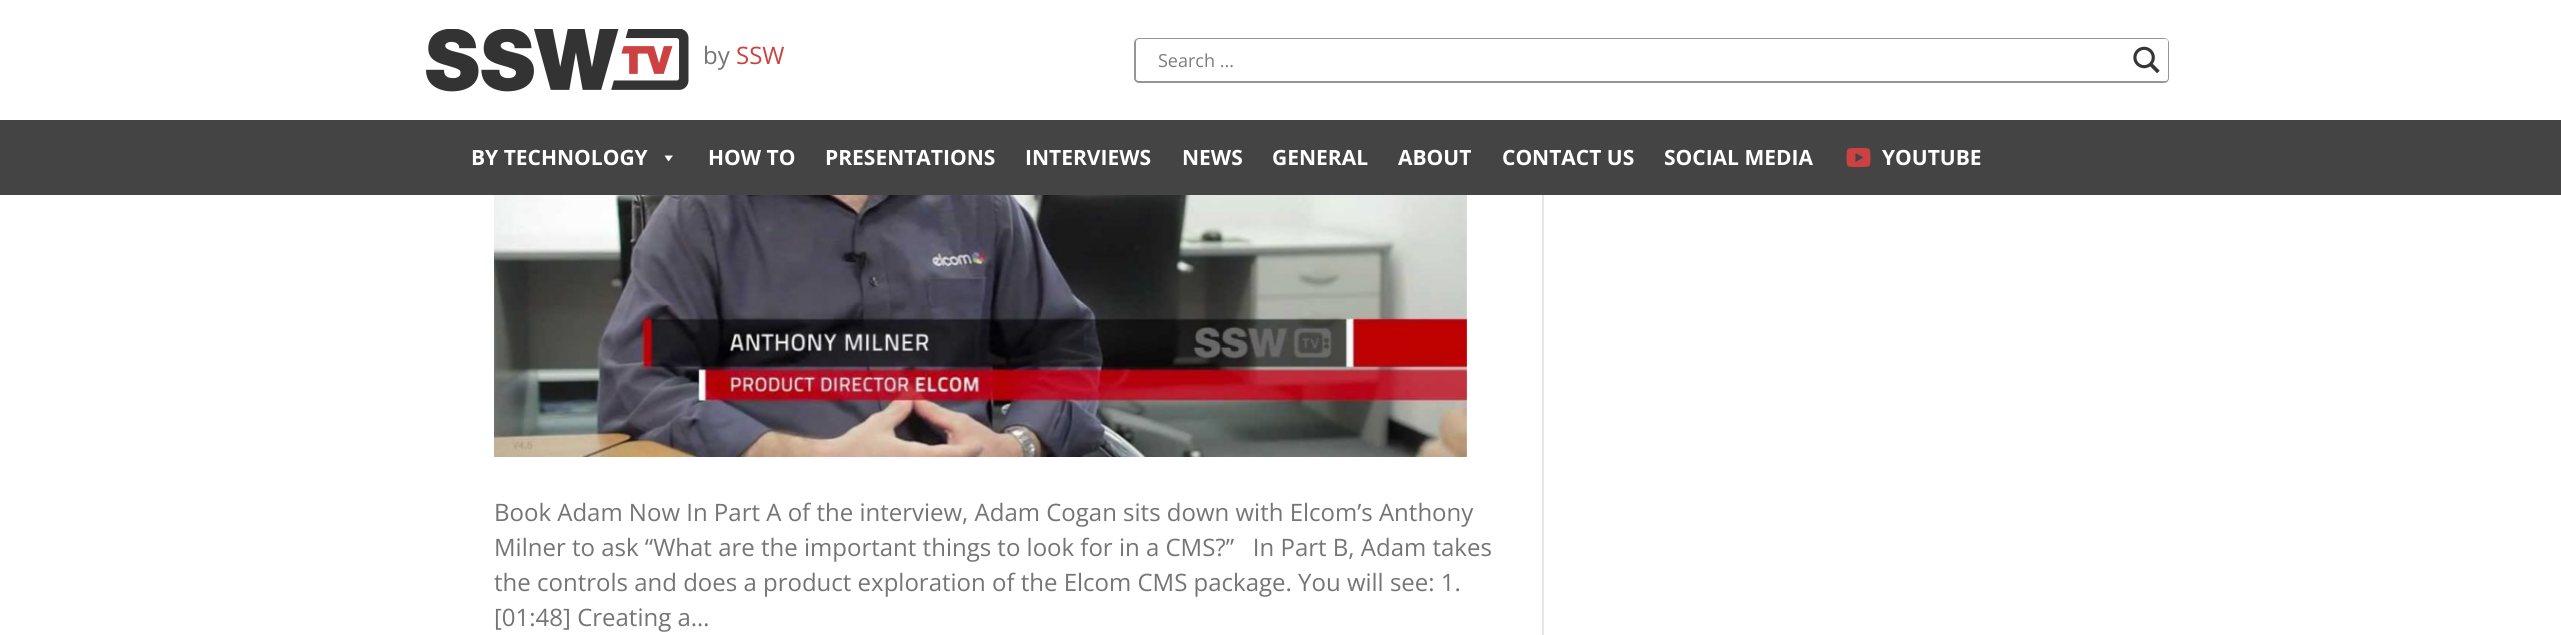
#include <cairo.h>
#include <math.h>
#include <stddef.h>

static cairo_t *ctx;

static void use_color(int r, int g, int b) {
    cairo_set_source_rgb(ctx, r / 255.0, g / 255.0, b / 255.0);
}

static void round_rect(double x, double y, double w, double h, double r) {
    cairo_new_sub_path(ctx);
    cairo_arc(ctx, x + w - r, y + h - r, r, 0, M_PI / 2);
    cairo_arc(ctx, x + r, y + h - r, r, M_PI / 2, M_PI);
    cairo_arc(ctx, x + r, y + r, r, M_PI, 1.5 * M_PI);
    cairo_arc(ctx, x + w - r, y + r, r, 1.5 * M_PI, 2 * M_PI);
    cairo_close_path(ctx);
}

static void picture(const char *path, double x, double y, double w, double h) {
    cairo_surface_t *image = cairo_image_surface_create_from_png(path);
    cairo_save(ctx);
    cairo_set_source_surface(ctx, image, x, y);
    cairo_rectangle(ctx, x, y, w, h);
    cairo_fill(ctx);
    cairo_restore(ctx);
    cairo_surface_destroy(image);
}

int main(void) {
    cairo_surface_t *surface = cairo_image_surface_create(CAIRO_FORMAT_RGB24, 2561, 635);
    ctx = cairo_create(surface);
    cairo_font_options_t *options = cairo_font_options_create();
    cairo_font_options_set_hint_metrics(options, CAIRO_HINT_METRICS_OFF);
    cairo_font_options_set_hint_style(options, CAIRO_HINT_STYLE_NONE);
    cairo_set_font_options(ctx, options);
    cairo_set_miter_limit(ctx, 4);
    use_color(255, 255, 255);
    cairo_paint(ctx);
    picture("img1.png", 426, 29, 263, 63);
    cairo_select_font_face(ctx, "Open Sans", CAIRO_FONT_SLANT_NORMAL, CAIRO_FONT_WEIGHT_NORMAL);
    cairo_set_font_size(ctx, 24);
    use_color(117, 117, 117);
    cairo_move_to(ctx, 703, 64);
    cairo_show_text(ctx, "by");
    use_color(204, 65, 65);
    cairo_move_to(ctx, 736, 64);
    cairo_show_text(ctx, "SSW");
    round_rect(1135, 39, 1033, 43, 4);
    use_color(150, 150, 150);
    cairo_stroke(ctx);
    use_color(255, 255, 255);
    round_rect(1136, 39, 1032, 42, 3);
    cairo_fill(ctx);
    cairo_set_font_size(ctx, 18);
    use_color(125, 125, 125);
    cairo_move_to(ctx, 1158, 67);
    cairo_show_text(ctx, "Search ...");
    cairo_save(ctx);
    cairo_rectangle(ctx, 2126, 39, 42, 42);
    cairo_clip(ctx);
    cairo_set_source_rgba(ctx, 1, 1, 1, 0.64);
    cairo_new_path(ctx);
    cairo_move_to(ctx, 2124, 40);
    cairo_line_to(ctx, 2124, 81);
    cairo_line_to(ctx, 1977, 81);
    cairo_line_to(ctx, 1977, 39);
    cairo_line_to(ctx, 2165, 39);
    cairo_curve_to(ctx, 2167, 39, 2168, 40, 2168, 42);
    cairo_line_to(ctx, 2168, 78);
    cairo_curve_to(ctx, 2168, 79, 2167, 80, 2166, 81);
    cairo_line_to(ctx, 2166, 40);
    cairo_close_path(ctx);
    cairo_fill(ctx);
    cairo_restore(ctx);
    picture("img2.png", 2133, 46, 27, 28);
    use_color(68, 68, 68);
    cairo_rectangle(ctx, 0, 120, 2561, 75);
    cairo_fill(ctx);
    cairo_select_font_face(ctx, "Open Sans", CAIRO_FONT_SLANT_NORMAL, CAIRO_FONT_WEIGHT_BOLD);
    cairo_set_font_size(ctx, 21);
    use_color(255, 255, 255);
    cairo_move_to(ctx, 471, 165);
    cairo_show_text(ctx, "BY TECHNOLOGY");
    cairo_new_path(ctx);
    cairo_move_to(ctx, 673, 155.5);
    cairo_line_to(ctx, 668.5, 161.5);
    cairo_line_to(ctx, 664.5, 155.5);
    cairo_close_path(ctx);
    cairo_fill(ctx);
    cairo_move_to(ctx, 708, 165);
    cairo_show_text(ctx, "HOW TO");
    cairo_move_to(ctx, 825, 165);
    cairo_show_text(ctx, "PRESENTATIONS");
    cairo_move_to(ctx, 1025, 165);
    cairo_show_text(ctx, "INTERVIEWS");
    cairo_move_to(ctx, 1182, 165);
    cairo_show_text(ctx, "NEWS");
    cairo_move_to(ctx, 1272, 165);
    cairo_show_text(ctx, "GENERAL");
    cairo_move_to(ctx, 1398, 165);
    cairo_show_text(ctx, "ABOUT");
    cairo_move_to(ctx, 1502, 165);
    cairo_show_text(ctx, "CONTACT US");
    cairo_move_to(ctx, 1664, 165);
    cairo_show_text(ctx, "SOCIAL MEDIA");
    picture("img3.png", 1846, 147, 25, 21);
    cairo_move_to(ctx, 1882, 165);
    cairo_show_text(ctx, "YOUTUBE");
    use_color(230, 230, 230);
    cairo_rectangle(ctx, 1542, 195, 2, 440);
    cairo_fill(ctx);
    picture("img4.png", 494, 195, 973, 262);
    cairo_select_font_face(ctx, "Open Sans", CAIRO_FONT_SLANT_NORMAL, CAIRO_FONT_WEIGHT_NORMAL);
    cairo_set_font_size(ctx, 24);
    use_color(117, 117, 117);
    cairo_move_to(ctx, 494, 521);
    cairo_show_text(ctx, "Book Adam Now In Part A of the interview, Adam Cogan sits down with Elcom’s Anthony");
    cairo_move_to(ctx, 494, 556);
    cairo_show_text(ctx, "Milner to ask “What are the important things to look for in a CMS?”   In Part B, Adam takes");
    cairo_move_to(ctx, 494, 591);
    cairo_show_text(ctx, "the controls and does a product exploration of the Elcom CMS package. You will see: 1.");
    cairo_move_to(ctx, 494, 626);
    cairo_show_text(ctx, "[01:48] Creating a…");
    cairo_surface_write_to_png(surface, "result.png");
    cairo_font_options_destroy(options);
    cairo_destroy(ctx);
    cairo_surface_destroy(surface);
    return 0;
}
